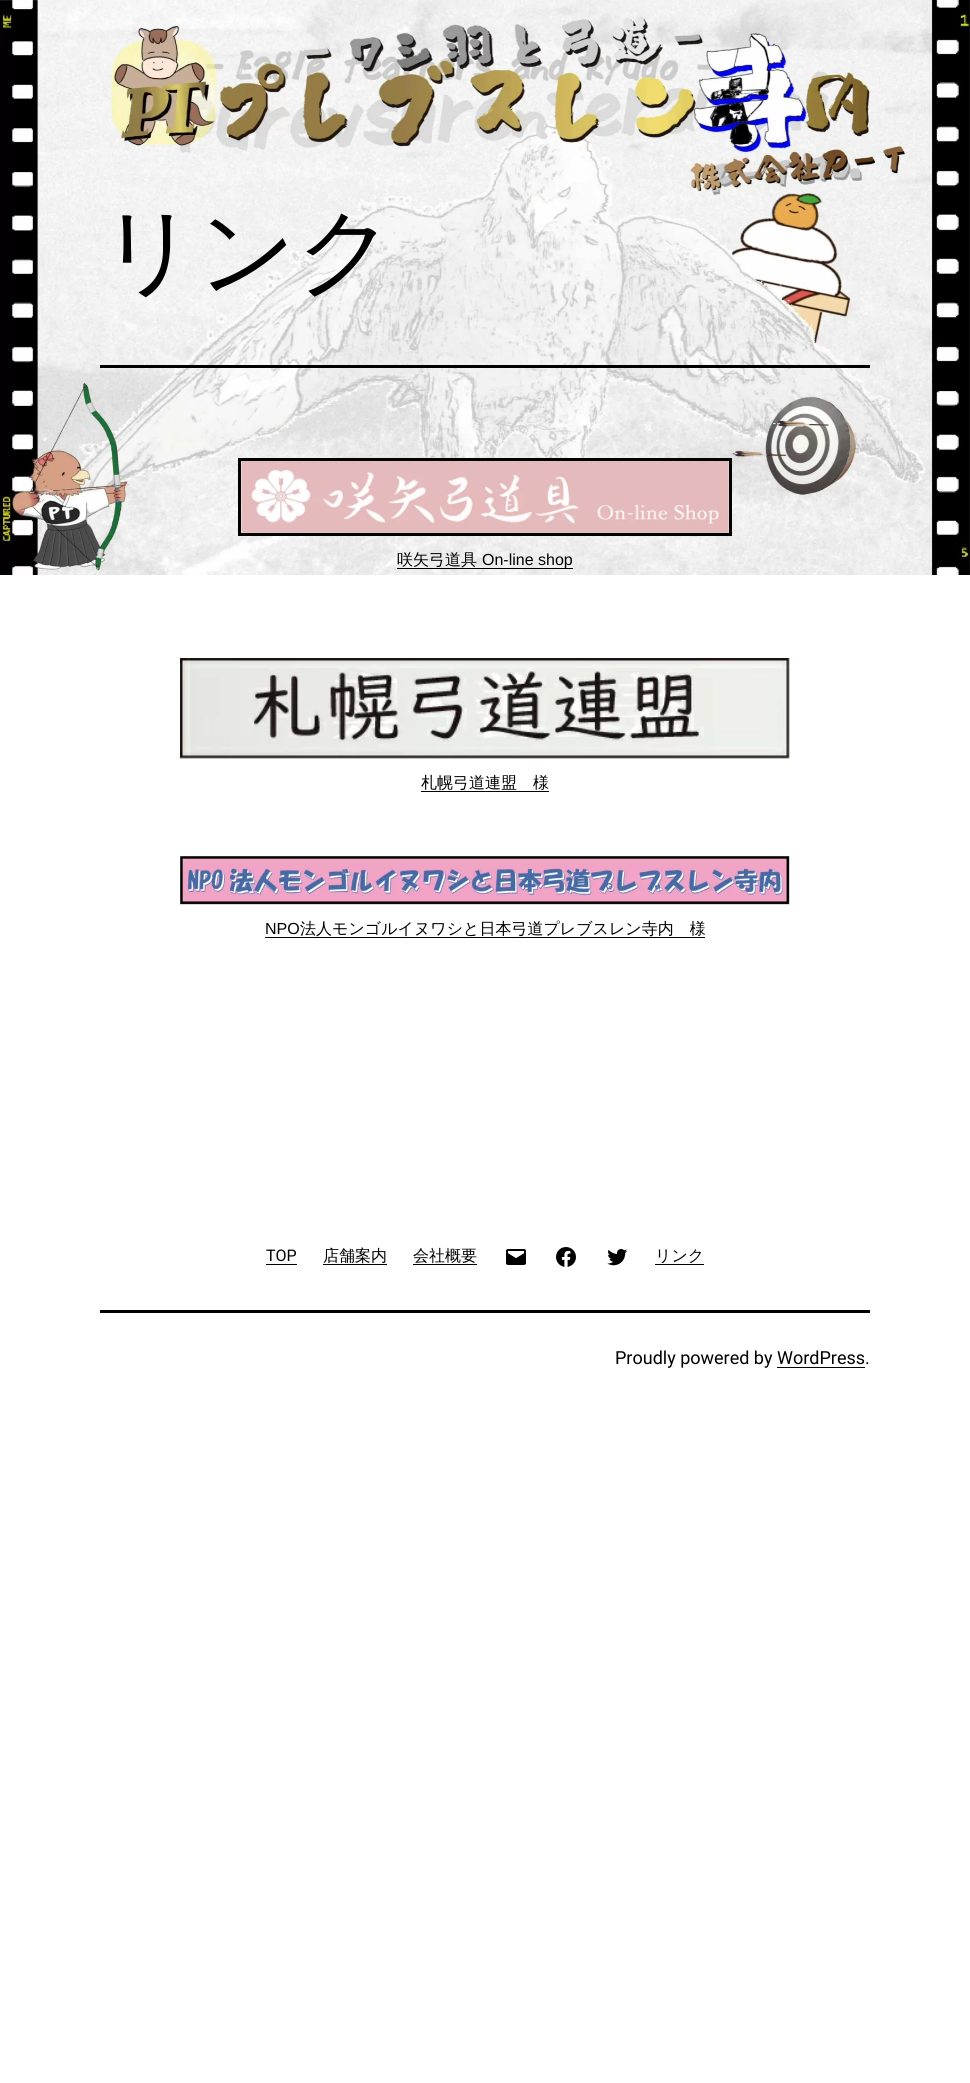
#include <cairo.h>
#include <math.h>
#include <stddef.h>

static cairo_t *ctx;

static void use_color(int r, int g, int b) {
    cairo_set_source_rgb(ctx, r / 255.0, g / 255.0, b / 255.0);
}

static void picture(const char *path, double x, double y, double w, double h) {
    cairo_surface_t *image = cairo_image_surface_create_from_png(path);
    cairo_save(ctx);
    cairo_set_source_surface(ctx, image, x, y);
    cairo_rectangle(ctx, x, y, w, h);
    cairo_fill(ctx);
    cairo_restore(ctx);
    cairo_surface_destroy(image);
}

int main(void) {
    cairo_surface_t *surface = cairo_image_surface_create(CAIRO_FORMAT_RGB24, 970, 2083);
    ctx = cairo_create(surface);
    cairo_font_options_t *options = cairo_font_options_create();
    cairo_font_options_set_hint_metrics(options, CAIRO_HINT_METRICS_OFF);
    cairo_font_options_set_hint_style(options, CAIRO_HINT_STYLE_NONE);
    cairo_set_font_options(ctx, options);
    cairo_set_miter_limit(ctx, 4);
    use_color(255, 255, 255);
    cairo_paint(ctx);
    picture("img1.png", 0, 0, 970, 575);
    use_color(0, 0, 0);
    cairo_rectangle(ctx, 100, 365, 770, 3);
    cairo_fill(ctx);
    cairo_select_font_face(ctx, "WenQuanYi Zen Hei Medium", CAIRO_FONT_SLANT_NORMAL, CAIRO_FONT_WEIGHT_NORMAL);
    cairo_set_font_size(ctx, 96);
    cairo_move_to(ctx, 100, 284);
    cairo_show_text(ctx, "リンク");
    cairo_rectangle(ctx, 239.5, 459.5, 491, 75);
    cairo_set_line_width(ctx, 3);
    cairo_stroke(ctx);
    picture("img2.png", 241, 461, 488, 72);
    cairo_set_font_size(ctx, 16);
    cairo_move_to(ctx, 397, 565);
    cairo_show_text(ctx, "咲矢弓道具");
    cairo_rectangle(ctx, 397, 568, 176, 1);
    cairo_fill(ctx);
    cairo_select_font_face(ctx, "Liberation Sans", CAIRO_FONT_SLANT_NORMAL, CAIRO_FONT_WEIGHT_NORMAL);
    cairo_move_to(ctx, 482, 565);
    cairo_show_text(ctx, "On-line shop");
    picture("img3.png", 180, 658, 610, 101);
    cairo_select_font_face(ctx, "WenQuanYi Zen Hei Medium", CAIRO_FONT_SLANT_NORMAL, CAIRO_FONT_WEIGHT_NORMAL);
    cairo_move_to(ctx, 421, 788);
    cairo_show_text(ctx, "札幌弓道連盟　様");
    cairo_rectangle(ctx, 421, 791, 128, 1);
    cairo_fill(ctx);
    picture("img4.png", 180, 856, 610, 49);
    cairo_select_font_face(ctx, "Liberation Sans", CAIRO_FONT_SLANT_NORMAL, CAIRO_FONT_WEIGHT_NORMAL);
    cairo_move_to(ctx, 265, 934);
    cairo_show_text(ctx, "NPO");
    cairo_rectangle(ctx, 265, 937, 440, 1);
    cairo_fill(ctx);
    cairo_select_font_face(ctx, "WenQuanYi Zen Hei Medium", CAIRO_FONT_SLANT_NORMAL, CAIRO_FONT_WEIGHT_NORMAL);
    cairo_move_to(ctx, 300, 934);
    cairo_show_text(ctx, "法人モンゴルイヌワシと日本弓道プレブスレン寺内　様");
    cairo_select_font_face(ctx, "Roboto", CAIRO_FONT_SLANT_NORMAL, CAIRO_FONT_WEIGHT_NORMAL);
    cairo_move_to(ctx, 266, 1261);
    cairo_show_text(ctx, "TOP");
    cairo_rectangle(ctx, 266, 1264, 31, 1);
    cairo_fill(ctx);
    cairo_select_font_face(ctx, "WenQuanYi Zen Hei Medium", CAIRO_FONT_SLANT_NORMAL, CAIRO_FONT_WEIGHT_NORMAL);
    cairo_move_to(ctx, 323, 1261);
    cairo_show_text(ctx, "店舗案内");
    cairo_rectangle(ctx, 323, 1264, 64, 1);
    cairo_fill(ctx);
    cairo_move_to(ctx, 413, 1261);
    cairo_show_text(ctx, "会社概要");
    cairo_rectangle(ctx, 413, 1264, 64, 1);
    cairo_fill(ctx);
    picture("img5.png", 506, 1249, 20, 16);
    picture("img6.png", 556, 1247, 20, 20);
    picture("img7.png", 607, 1249, 20, 17);
    cairo_move_to(ctx, 655, 1261);
    cairo_show_text(ctx, "リンク");
    cairo_rectangle(ctx, 655, 1264, 49, 1);
    cairo_fill(ctx);
    cairo_rectangle(ctx, 100, 1310, 770, 3);
    cairo_fill(ctx);
    cairo_select_font_face(ctx, "Roboto", CAIRO_FONT_SLANT_NORMAL, CAIRO_FONT_WEIGHT_NORMAL);
    cairo_set_font_size(ctx, 18);
    cairo_move_to(ctx, 615, 1364);
    cairo_show_text(ctx, "Proudly powered by WordPress.");
    cairo_rectangle(ctx, 777, 1367, 88, 1);
    cairo_fill(ctx);
    cairo_surface_write_to_png(surface, "result.png");
    cairo_font_options_destroy(options);
    cairo_destroy(ctx);
    cairo_surface_destroy(surface);
    return 0;
}
